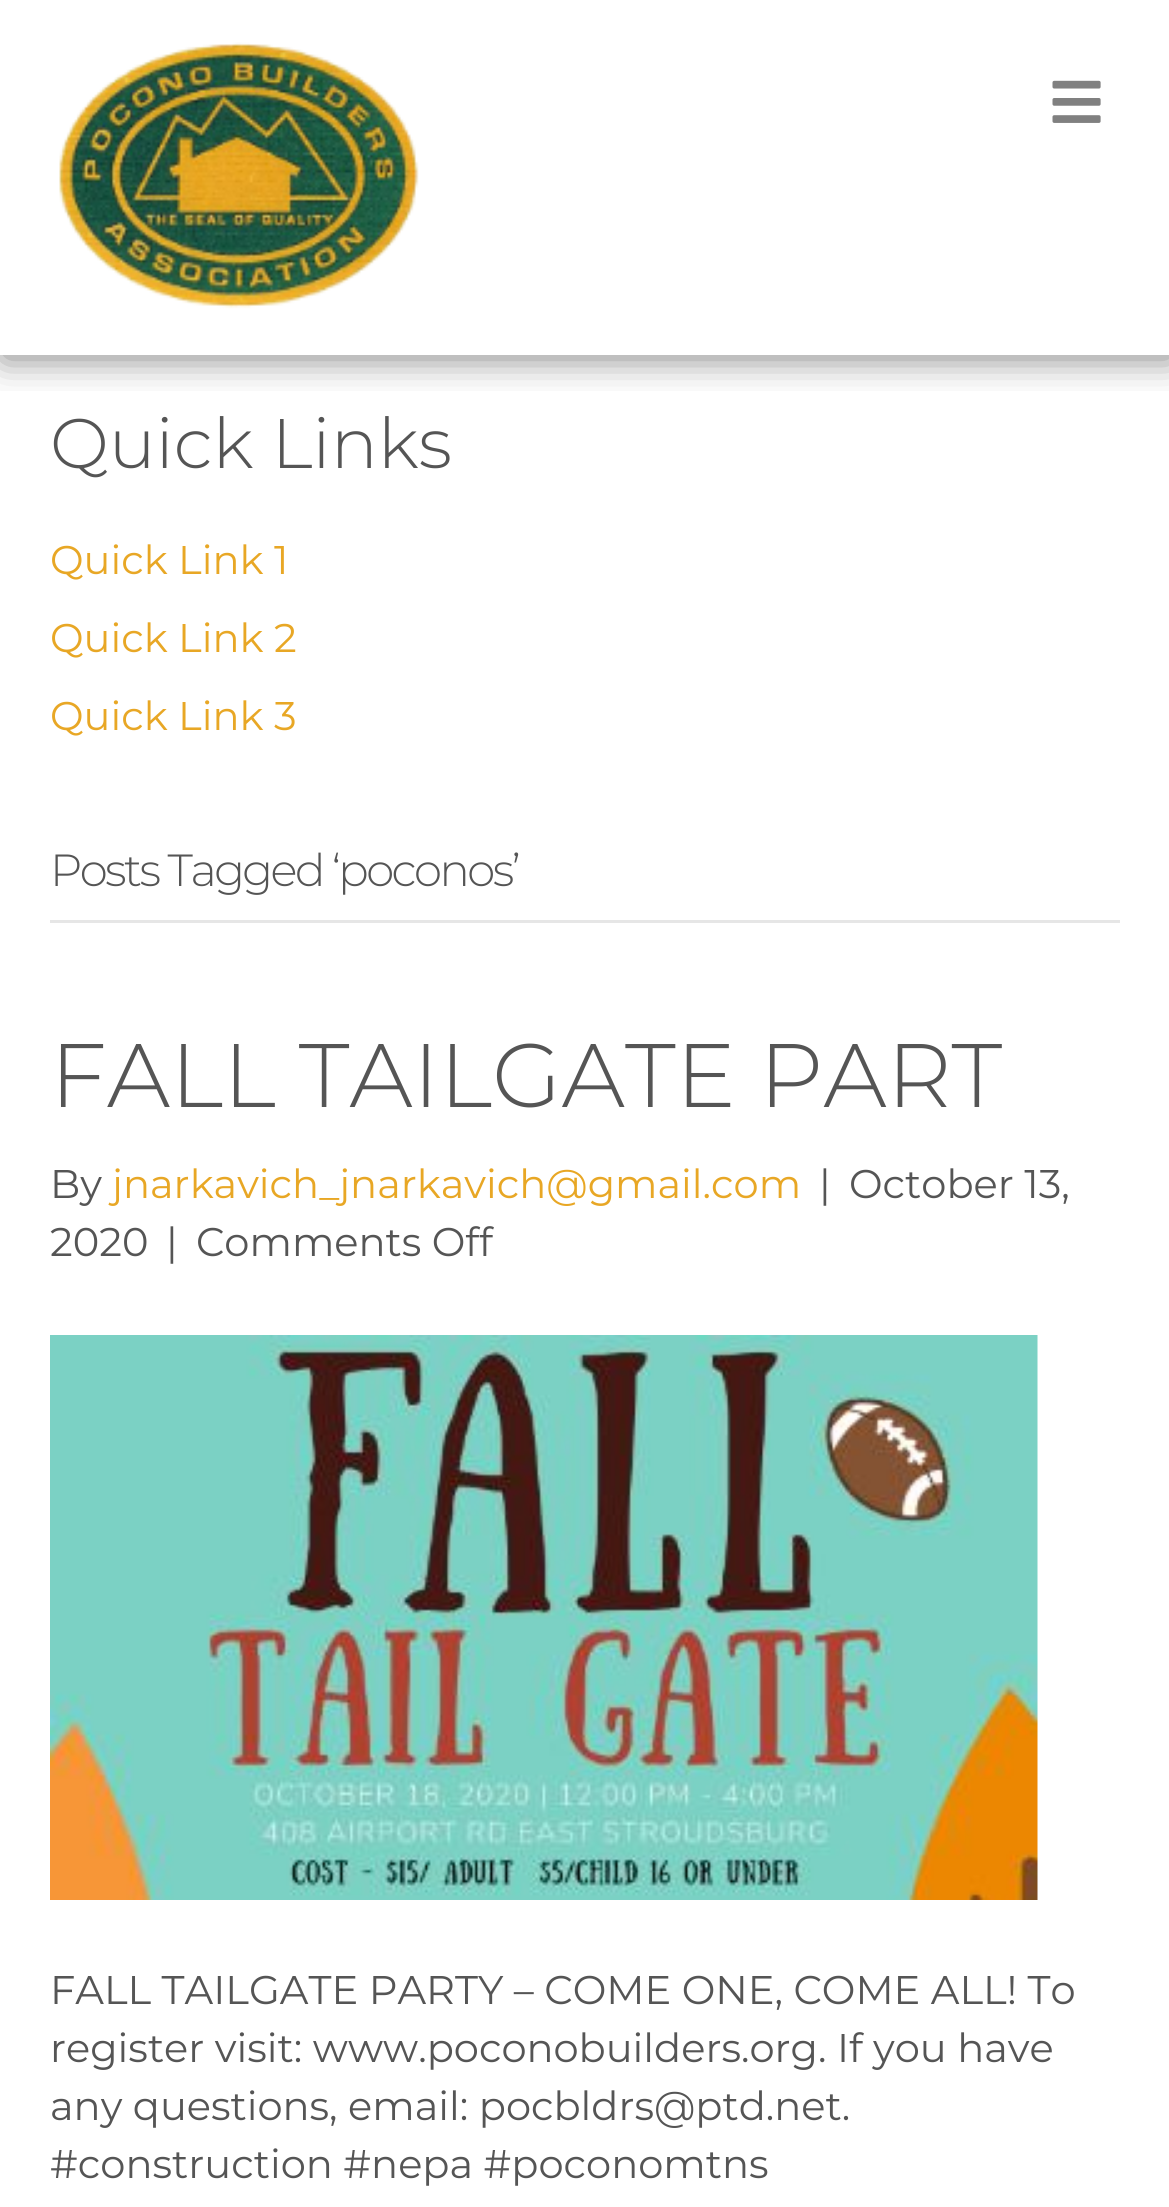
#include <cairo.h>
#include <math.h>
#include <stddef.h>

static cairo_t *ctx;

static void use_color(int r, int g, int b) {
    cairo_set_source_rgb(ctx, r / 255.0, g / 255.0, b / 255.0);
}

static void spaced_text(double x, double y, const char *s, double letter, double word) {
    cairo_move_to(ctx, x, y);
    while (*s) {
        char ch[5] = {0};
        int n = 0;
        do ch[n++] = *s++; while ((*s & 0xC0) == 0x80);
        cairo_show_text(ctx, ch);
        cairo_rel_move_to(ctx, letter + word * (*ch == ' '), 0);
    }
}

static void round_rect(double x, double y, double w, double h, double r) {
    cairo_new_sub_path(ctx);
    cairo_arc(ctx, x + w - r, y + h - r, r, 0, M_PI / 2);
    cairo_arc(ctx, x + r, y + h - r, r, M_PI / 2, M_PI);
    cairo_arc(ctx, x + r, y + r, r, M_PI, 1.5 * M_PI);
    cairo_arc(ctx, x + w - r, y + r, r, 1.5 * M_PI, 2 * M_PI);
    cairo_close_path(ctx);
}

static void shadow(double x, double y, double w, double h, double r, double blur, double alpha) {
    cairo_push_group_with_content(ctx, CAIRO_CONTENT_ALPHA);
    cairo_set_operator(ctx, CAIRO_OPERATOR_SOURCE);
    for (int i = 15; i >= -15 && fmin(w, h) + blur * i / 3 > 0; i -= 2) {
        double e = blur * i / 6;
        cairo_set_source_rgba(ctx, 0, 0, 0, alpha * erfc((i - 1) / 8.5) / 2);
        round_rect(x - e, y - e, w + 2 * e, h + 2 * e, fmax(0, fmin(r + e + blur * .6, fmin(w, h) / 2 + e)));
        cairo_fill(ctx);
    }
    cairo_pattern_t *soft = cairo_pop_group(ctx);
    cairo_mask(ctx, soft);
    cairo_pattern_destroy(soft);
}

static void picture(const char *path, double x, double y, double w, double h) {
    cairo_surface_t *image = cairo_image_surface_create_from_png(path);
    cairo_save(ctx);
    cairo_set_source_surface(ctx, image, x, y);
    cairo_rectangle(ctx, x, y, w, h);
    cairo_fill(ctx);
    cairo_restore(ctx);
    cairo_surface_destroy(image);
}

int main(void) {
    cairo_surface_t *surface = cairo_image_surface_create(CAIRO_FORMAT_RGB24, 1169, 2207);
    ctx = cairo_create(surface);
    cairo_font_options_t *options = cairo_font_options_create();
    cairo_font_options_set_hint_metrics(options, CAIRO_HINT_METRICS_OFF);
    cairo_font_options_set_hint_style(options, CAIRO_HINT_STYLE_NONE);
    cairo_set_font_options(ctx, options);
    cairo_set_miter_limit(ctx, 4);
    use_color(255, 255, 255);
    cairo_paint(ctx);
    cairo_save(ctx);
    cairo_rectangle(ctx, 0, 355, 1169, 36);
    cairo_clip(ctx);
    use_color(0, 0, 0);
    shadow(3, 3, 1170, 355, 0, 19, 0.5);
    cairo_restore(ctx);
    picture("img1.png", 59, 42, 360, 267);
    picture("img2.png", 1052, 80, 49, 43);
    cairo_select_font_face(ctx, "Montserrat Light", CAIRO_FONT_SLANT_NORMAL, CAIRO_FONT_WEIGHT_NORMAL);
    cairo_set_font_size(ctx, 70);
    use_color(85, 85, 85);
    cairo_move_to(ctx, 50, 468);
    cairo_show_text(ctx, "Quick Links");
    cairo_select_font_face(ctx, "Montserrat", CAIRO_FONT_SLANT_NORMAL, CAIRO_FONT_WEIGHT_NORMAL);
    cairo_set_font_size(ctx, 40);
    use_color(232, 167, 37);
    cairo_move_to(ctx, 50, 574);
    cairo_show_text(ctx, "Quick Link 1");
    cairo_move_to(ctx, 50, 652);
    cairo_show_text(ctx, "Quick Link 2");
    cairo_move_to(ctx, 50, 730);
    cairo_show_text(ctx, "Quick Link 3");
    use_color(230, 230, 230);
    cairo_rectangle(ctx, 50, 920, 1070, 3);
    cairo_fill(ctx);
    cairo_select_font_face(ctx, "Montserrat Light", CAIRO_FONT_SLANT_NORMAL, CAIRO_FONT_WEIGHT_NORMAL);
    cairo_set_font_size(ctx, 45);
    use_color(85, 85, 85);
    spaced_text(50, 886, "Posts Tagged ‘poconos’", -2.5, 0);
    cairo_set_font_size(ctx, 90);
    cairo_move_to(ctx, 50, 1107);
    cairo_show_text(ctx, "FALL TAILGATE PART");
    cairo_select_font_face(ctx, "Montserrat", CAIRO_FONT_SLANT_NORMAL, CAIRO_FONT_WEIGHT_NORMAL);
    cairo_set_font_size(ctx, 40);
    cairo_move_to(ctx, 50, 1198);
    cairo_show_text(ctx, "By");
    use_color(232, 167, 37);
    cairo_move_to(ctx, 112, 1198);
    cairo_show_text(ctx, "jnarkavich_jnarkavich@gmail.com");
    use_color(85, 85, 85);
    cairo_move_to(ctx, 819, 1198);
    cairo_show_text(ctx, "|");
    cairo_move_to(ctx, 849, 1198);
    cairo_show_text(ctx, "October 13,");
    cairo_move_to(ctx, 50, 1256);
    cairo_show_text(ctx, "2020");
    cairo_move_to(ctx, 166, 1256);
    cairo_show_text(ctx, "|");
    cairo_move_to(ctx, 196, 1256);
    cairo_show_text(ctx, "Comments Off");
    picture("img3.png", 50, 1335, 988, 565);
    cairo_move_to(ctx, 50, 2004);
    cairo_show_text(ctx, "FALL TAILGATE PARTY – COME ONE, COME ALL! To");
    cairo_move_to(ctx, 50, 2062);
    cairo_show_text(ctx, "register visit: www.poconobuilders.org. If you have");
    cairo_move_to(ctx, 50, 2120);
    cairo_show_text(ctx, "any questions, email: pocbldrs@ptd.net.");
    cairo_move_to(ctx, 50, 2178);
    cairo_show_text(ctx, "#construction #nepa #poconomtns");
    cairo_surface_write_to_png(surface, "result.png");
    cairo_font_options_destroy(options);
    cairo_destroy(ctx);
    cairo_surface_destroy(surface);
    return 0;
}
